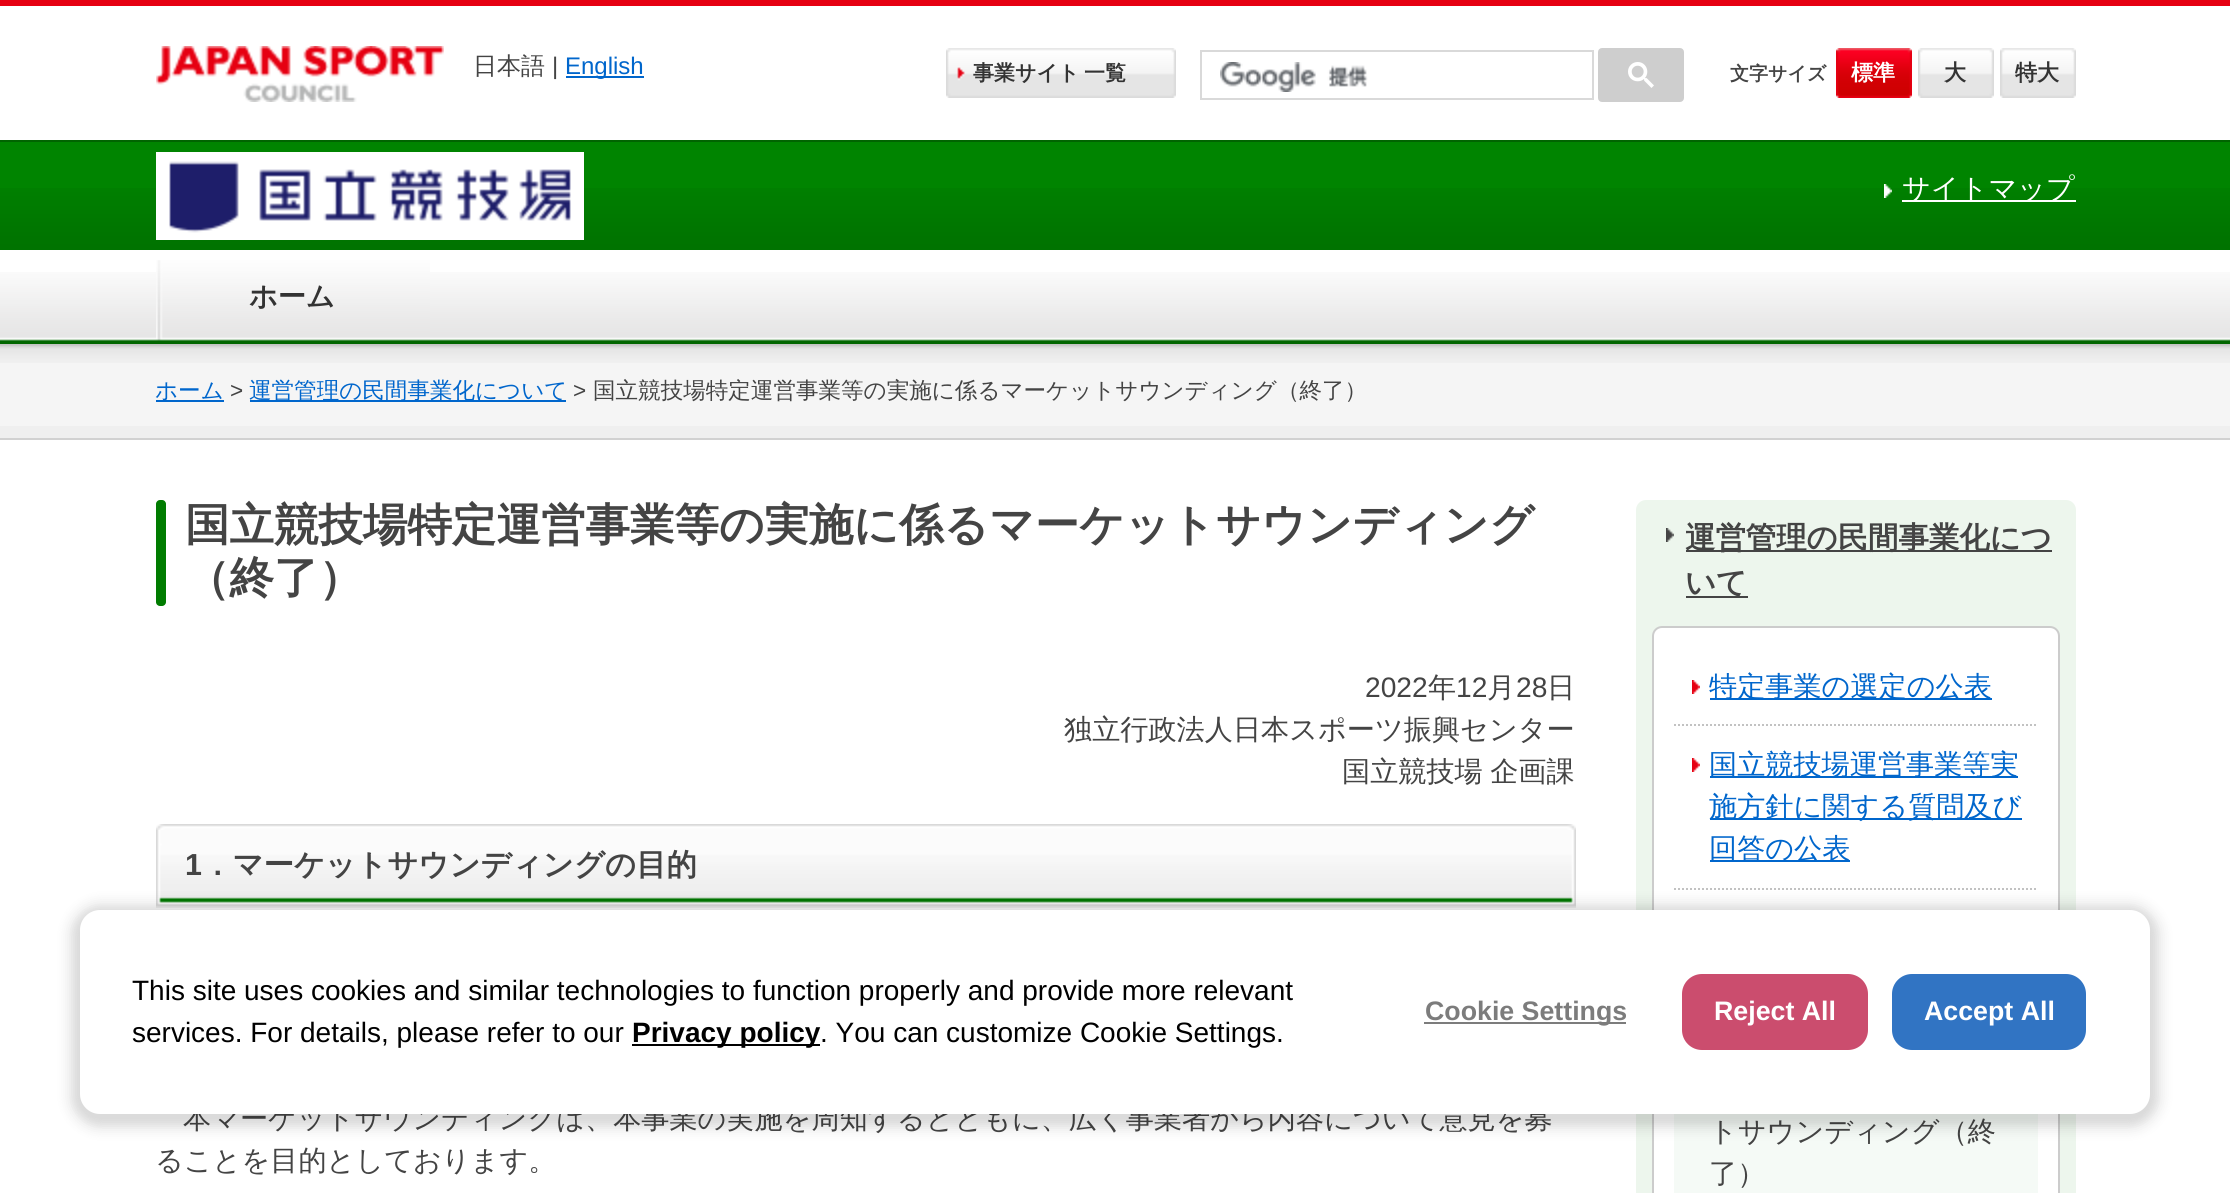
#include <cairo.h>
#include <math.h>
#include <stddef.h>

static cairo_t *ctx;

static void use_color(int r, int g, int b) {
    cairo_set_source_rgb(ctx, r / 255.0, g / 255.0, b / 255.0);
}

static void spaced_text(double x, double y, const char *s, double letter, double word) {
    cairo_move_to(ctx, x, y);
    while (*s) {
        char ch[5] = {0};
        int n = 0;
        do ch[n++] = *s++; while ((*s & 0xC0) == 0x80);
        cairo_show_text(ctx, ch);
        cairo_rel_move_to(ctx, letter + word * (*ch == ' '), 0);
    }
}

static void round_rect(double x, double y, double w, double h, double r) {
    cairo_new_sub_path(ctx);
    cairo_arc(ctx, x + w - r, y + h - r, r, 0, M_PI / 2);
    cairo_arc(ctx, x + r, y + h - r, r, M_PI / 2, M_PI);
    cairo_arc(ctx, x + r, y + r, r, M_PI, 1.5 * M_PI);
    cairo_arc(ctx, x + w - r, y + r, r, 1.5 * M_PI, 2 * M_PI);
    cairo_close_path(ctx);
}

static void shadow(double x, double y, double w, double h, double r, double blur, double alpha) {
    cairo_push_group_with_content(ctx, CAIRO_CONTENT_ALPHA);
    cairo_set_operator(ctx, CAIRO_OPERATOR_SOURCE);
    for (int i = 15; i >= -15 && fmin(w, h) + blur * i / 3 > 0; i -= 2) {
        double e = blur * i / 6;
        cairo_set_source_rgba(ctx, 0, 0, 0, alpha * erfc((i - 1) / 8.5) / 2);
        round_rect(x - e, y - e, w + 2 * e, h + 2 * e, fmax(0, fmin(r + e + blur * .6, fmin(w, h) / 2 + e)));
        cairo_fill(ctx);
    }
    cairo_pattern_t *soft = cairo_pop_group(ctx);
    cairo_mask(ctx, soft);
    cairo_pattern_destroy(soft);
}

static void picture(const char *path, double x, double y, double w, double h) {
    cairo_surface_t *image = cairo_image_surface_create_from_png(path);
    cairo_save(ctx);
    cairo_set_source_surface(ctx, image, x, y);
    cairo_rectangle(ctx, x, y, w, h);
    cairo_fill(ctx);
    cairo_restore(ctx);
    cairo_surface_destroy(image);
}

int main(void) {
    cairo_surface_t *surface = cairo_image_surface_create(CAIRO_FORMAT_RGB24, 2230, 1193);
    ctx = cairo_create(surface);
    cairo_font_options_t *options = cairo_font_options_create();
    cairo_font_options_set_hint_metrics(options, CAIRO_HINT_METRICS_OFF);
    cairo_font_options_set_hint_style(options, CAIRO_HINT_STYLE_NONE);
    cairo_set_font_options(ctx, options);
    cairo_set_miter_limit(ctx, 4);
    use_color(255, 255, 255);
    cairo_paint(ctx);
    use_color(230, 0, 18);
    cairo_rectangle(ctx, 0, 0, 2230, 6);
    cairo_fill(ctx);
    picture("img1.png", 156, 46, 288, 56);
    cairo_select_font_face(ctx, "WenQuanYi Zen Hei Medium", CAIRO_FONT_SLANT_NORMAL, CAIRO_FONT_WEIGHT_NORMAL);
    cairo_set_font_size(ctx, 24);
    use_color(68, 68, 68);
    cairo_move_to(ctx, 473, 74);
    cairo_show_text(ctx, "日本語");
    cairo_select_font_face(ctx, "Liberation Sans", CAIRO_FONT_SLANT_NORMAL, CAIRO_FONT_WEIGHT_NORMAL);
    cairo_move_to(ctx, 552, 74);
    cairo_show_text(ctx, "|");
    use_color(0, 102, 204);
    cairo_rectangle(ctx, 566, 76, 78, 2);
    cairo_fill(ctx);
    cairo_move_to(ctx, 565, 74);
    cairo_show_text(ctx, "English");
    picture("img2.png", 946, 48, 230, 50);
    cairo_select_font_face(ctx, "WenQuanYi Zen Hei", CAIRO_FONT_SLANT_NORMAL, CAIRO_FONT_WEIGHT_BOLD);
    cairo_set_font_size(ctx, 21);
    use_color(51, 51, 51);
    cairo_move_to(ctx, 973, 80);
    cairo_show_text(ctx, "事業サイト");
    cairo_move_to(ctx, 1084, 80);
    cairo_show_text(ctx, "一覧");
    cairo_rectangle(ctx, 1201, 51, 392, 48);
    use_color(217, 217, 217);
    cairo_stroke(ctx);
    picture("img3.png", 1220, 62, 148, 30);
    use_color(206, 206, 206);
    round_rect(1599, 49, 84, 52, 3);
    cairo_fill_preserve(ctx);
    cairo_stroke(ctx);
    picture("img4.png", 1628, 62, 26, 26);
    cairo_set_font_size(ctx, 19);
    use_color(68, 68, 68);
    cairo_move_to(ctx, 1730, 80);
    cairo_show_text(ctx, "文字サイズ");
    picture("img5.png", 1836, 48, 76, 50);
    cairo_set_font_size(ctx, 22);
    use_color(255, 255, 255);
    cairo_move_to(ctx, 1851, 80);
    cairo_show_text(ctx, "標準");
    picture("img6.png", 1918, 48, 76, 50);
    use_color(51, 51, 51);
    cairo_move_to(ctx, 1944, 80);
    cairo_show_text(ctx, "大");
    picture("img6.png", 2000, 48, 76, 50);
    cairo_move_to(ctx, 2015, 80);
    cairo_show_text(ctx, "特大");
    use_color(0, 132, 0);
    cairo_rectangle(ctx, 0, 142, 2230, 46);
    cairo_fill(ctx);
    picture("img7.png", 0, 188, 2230, 62);
    use_color(0, 100, 0);
    cairo_rectangle(ctx, 0, 140, 2230, 2);
    cairo_fill(ctx);
    picture("img8.png", 156, 152, 428, 88);
    picture("img9.png", 1884, 184, 8, 14);
    use_color(255, 255, 255);
    cairo_rectangle(ctx, 1902, 200, 174, 2);
    cairo_fill(ctx);
    cairo_select_font_face(ctx, "WenQuanYi Zen Hei Medium", CAIRO_FONT_SLANT_NORMAL, CAIRO_FONT_WEIGHT_NORMAL);
    cairo_set_font_size(ctx, 28.15);
    cairo_move_to(ctx, 1902, 198);
    cairo_show_text(ctx, "サイトマップ");
    picture("img10.png", 0, 272, 2230, 72);
    picture("img11.png", 156, 260, 274, 81);
    cairo_select_font_face(ctx, "WenQuanYi Zen Hei", CAIRO_FONT_SLANT_NORMAL, CAIRO_FONT_WEIGHT_BOLD);
    use_color(51, 51, 51);
    cairo_move_to(ctx, 249, 306);
    cairo_show_text(ctx, "ホーム");
    use_color(245, 245, 245);
    cairo_rectangle(ctx, 0, 363, 2230, 63);
    cairo_fill(ctx);
    picture("img12.png", 0, 344, 2230, 19);
    use_color(239, 239, 239);
    cairo_rectangle(ctx, 0, 426, 2230, 12);
    cairo_fill(ctx);
    use_color(209, 209, 209);
    cairo_rectangle(ctx, 0, 438, 2230, 2);
    cairo_fill(ctx);
    use_color(0, 102, 204);
    cairo_rectangle(ctx, 156, 400, 68, 2);
    cairo_fill(ctx);
    cairo_select_font_face(ctx, "WenQuanYi Zen Hei Medium", CAIRO_FONT_SLANT_NORMAL, CAIRO_FONT_WEIGHT_NORMAL);
    cairo_set_font_size(ctx, 22.55);
    cairo_move_to(ctx, 155, 398);
    cairo_show_text(ctx, "ホーム");
    cairo_select_font_face(ctx, "Liberation Sans", CAIRO_FONT_SLANT_NORMAL, CAIRO_FONT_WEIGHT_NORMAL);
    use_color(68, 68, 68);
    cairo_move_to(ctx, 230, 398);
    cairo_show_text(ctx, ">");
    use_color(0, 102, 204);
    cairo_rectangle(ctx, 250, 400, 316, 2);
    cairo_fill(ctx);
    cairo_select_font_face(ctx, "WenQuanYi Zen Hei Medium", CAIRO_FONT_SLANT_NORMAL, CAIRO_FONT_WEIGHT_NORMAL);
    cairo_move_to(ctx, 249, 398);
    cairo_show_text(ctx, "運営管理の民間事業化について");
    cairo_select_font_face(ctx, "Liberation Sans", CAIRO_FONT_SLANT_NORMAL, CAIRO_FONT_WEIGHT_NORMAL);
    use_color(68, 68, 68);
    cairo_move_to(ctx, 573, 398);
    cairo_show_text(ctx, ">");
    cairo_select_font_face(ctx, "WenQuanYi Zen Hei Medium", CAIRO_FONT_SLANT_NORMAL, CAIRO_FONT_WEIGHT_NORMAL);
    cairo_move_to(ctx, 593, 398);
    cairo_show_text(ctx, "国立競技場特定運営事業等の実施に係るマーケットサウンディング（終了）");
    use_color(0, 124, 0);
    round_rect(156, 500, 10, 106, 4);
    cairo_fill(ctx);
    cairo_select_font_face(ctx, "WenQuanYi Zen Hei", CAIRO_FONT_SLANT_NORMAL, CAIRO_FONT_WEIGHT_BOLD);
    cairo_set_font_size(ctx, 44.5);
    use_color(68, 68, 68);
    cairo_move_to(ctx, 185, 540);
    cairo_show_text(ctx, "国立競技場特定運営事業等の実施に係るマーケットサウンディング");
    cairo_move_to(ctx, 185, 593);
    cairo_show_text(ctx, "（終了）");
    cairo_select_font_face(ctx, "Liberation Sans", CAIRO_FONT_SLANT_NORMAL, CAIRO_FONT_WEIGHT_NORMAL);
    cairo_set_font_size(ctx, 28.15);
    cairo_move_to(ctx, 1365, 697);
    cairo_show_text(ctx, "2022");
    cairo_select_font_face(ctx, "WenQuanYi Zen Hei Medium", CAIRO_FONT_SLANT_NORMAL, CAIRO_FONT_WEIGHT_NORMAL);
    cairo_move_to(ctx, 1428, 697);
    cairo_show_text(ctx, "年");
    cairo_select_font_face(ctx, "Liberation Sans", CAIRO_FONT_SLANT_NORMAL, CAIRO_FONT_WEIGHT_NORMAL);
    cairo_move_to(ctx, 1456, 697);
    cairo_show_text(ctx, "12");
    cairo_select_font_face(ctx, "WenQuanYi Zen Hei Medium", CAIRO_FONT_SLANT_NORMAL, CAIRO_FONT_WEIGHT_NORMAL);
    cairo_move_to(ctx, 1487, 697);
    cairo_show_text(ctx, "月");
    cairo_select_font_face(ctx, "Liberation Sans", CAIRO_FONT_SLANT_NORMAL, CAIRO_FONT_WEIGHT_NORMAL);
    cairo_move_to(ctx, 1516, 697);
    cairo_show_text(ctx, "28");
    cairo_select_font_face(ctx, "WenQuanYi Zen Hei Medium", CAIRO_FONT_SLANT_NORMAL, CAIRO_FONT_WEIGHT_NORMAL);
    cairo_move_to(ctx, 1547, 697);
    cairo_show_text(ctx, "日");
    cairo_move_to(ctx, 1064, 739);
    cairo_show_text(ctx, "独立行政法人日本スポーツ振興センター");
    spaced_text(1342, 781, "国立競技場 企画課", 0, -1);
    picture("img13.png", 156, 830, 1420, 78);
    picture("img14.png", 156, 824, 1420, 6);
    cairo_select_font_face(ctx, "Liberation Sans", CAIRO_FONT_SLANT_NORMAL, CAIRO_FONT_WEIGHT_BOLD);
    cairo_set_font_size(ctx, 30.4);
    cairo_move_to(ctx, 185, 875);
    cairo_show_text(ctx, "1");
    cairo_select_font_face(ctx, "WenQuanYi Zen Hei", CAIRO_FONT_SLANT_NORMAL, CAIRO_FONT_WEIGHT_BOLD);
    cairo_move_to(ctx, 202, 875);
    cairo_show_text(ctx, "．マーケットサウンディングの目的");
    cairo_select_font_face(ctx, "WenQuanYi Zen Hei Medium", CAIRO_FONT_SLANT_NORMAL, CAIRO_FONT_WEIGHT_NORMAL);
    cairo_set_font_size(ctx, 28.15);
    cairo_move_to(ctx, 183, 1128);
    cairo_show_text(ctx, "本マーケットサウンディングは、本事業の実施を周知するとともに、広く事業者から内容について意見を募");
    cairo_move_to(ctx, 155, 1170);
    cairo_show_text(ctx, "ることを目的としております。");
    use_color(237, 246, 237);
    round_rect(1636, 500, 440, 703, 10);
    cairo_fill(ctx);
    picture("img15.png", 1666, 528, 8, 14);
    use_color(68, 68, 68);
    cairo_rectangle(ctx, 1686, 550, 366, 2);
    cairo_fill(ctx);
    cairo_select_font_face(ctx, "WenQuanYi Zen Hei", CAIRO_FONT_SLANT_NORMAL, CAIRO_FONT_WEIGHT_BOLD);
    cairo_set_font_size(ctx, 30.4);
    cairo_move_to(ctx, 1685, 548);
    cairo_show_text(ctx, "運営管理の民間事業化につ");
    cairo_rectangle(ctx, 1686, 596, 62, 2);
    cairo_fill(ctx);
    cairo_move_to(ctx, 1685, 593);
    cairo_show_text(ctx, "いて");
    use_color(255, 255, 255);
    round_rect(1653, 627, 406, 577, 9);
    cairo_fill_preserve(ctx);
    use_color(204, 204, 204);
    cairo_stroke(ctx);
    picture("img16.png", 1692, 680, 8, 14);
    use_color(0, 102, 204);
    cairo_rectangle(ctx, 1710, 698, 282, 2);
    cairo_fill(ctx);
    cairo_select_font_face(ctx, "WenQuanYi Zen Hei Medium", CAIRO_FONT_SLANT_NORMAL, CAIRO_FONT_WEIGHT_NORMAL);
    cairo_set_font_size(ctx, 28.15);
    cairo_move_to(ctx, 1709, 696);
    cairo_show_text(ctx, "特定事業の選定の公表");
    cairo_new_path(ctx);
    cairo_move_to(ctx, 1674, 725);
    cairo_line_to(ctx, 2038, 725);
    use_color(194, 194, 194);
    cairo_set_dash(ctx, (double[]){2, 2}, 2, 0);
    cairo_stroke(ctx);
    picture("img16.png", 1692, 758, 8, 14);
    use_color(0, 102, 204);
    cairo_rectangle(ctx, 1710, 776, 308, 2);
    cairo_fill(ctx);
    cairo_move_to(ctx, 1709, 774);
    cairo_show_text(ctx, "国立競技場運営事業等実");
    cairo_rectangle(ctx, 1710, 818, 312, 2);
    cairo_fill(ctx);
    cairo_move_to(ctx, 1709, 816);
    cairo_show_text(ctx, "施方針に関する質問及び");
    cairo_rectangle(ctx, 1710, 860, 140, 2);
    cairo_fill(ctx);
    cairo_move_to(ctx, 1709, 858);
    cairo_show_text(ctx, "回答の公表");
    cairo_new_path(ctx);
    cairo_move_to(ctx, 1674, 889);
    cairo_line_to(ctx, 2038, 889);
    use_color(194, 194, 194);
    cairo_stroke(ctx);
    use_color(245, 250, 246);
    cairo_rectangle(ctx, 1674, 1114, 364, 79);
    cairo_fill(ctx);
    use_color(68, 68, 68);
    cairo_move_to(ctx, 1709, 1141);
    cairo_show_text(ctx, "トサウンディング（終");
    cairo_move_to(ctx, 1709, 1183);
    cairo_show_text(ctx, "了）");
    use_color(0, 0, 0);
    shadow(74, 908, 2082, 216, 26, 3, 0.05);
    shadow(68, 902, 2094, 228, 32, 6, 0.1);
    use_color(255, 255, 255);
    round_rect(80, 910, 2070, 204, 20);
    cairo_fill(ctx);
    cairo_select_font_face(ctx, "Liberation Sans", CAIRO_FONT_SLANT_NORMAL, CAIRO_FONT_WEIGHT_NORMAL);
    cairo_set_font_size(ctx, 28);
    use_color(0, 0, 0);
    cairo_move_to(ctx, 132, 1000);
    cairo_show_text(ctx, "This site uses cookies and similar technologies to function properly and provide more relevant");
    cairo_move_to(ctx, 132, 1042);
    cairo_show_text(ctx, "services. For details, please refer to our");
    cairo_rectangle(ctx, 632, 1044, 188, 2);
    cairo_fill(ctx);
    cairo_select_font_face(ctx, "Liberation Sans", CAIRO_FONT_SLANT_NORMAL, CAIRO_FONT_WEIGHT_BOLD);
    cairo_move_to(ctx, 632, 1042);
    cairo_show_text(ctx, "Privacy policy");
    cairo_select_font_face(ctx, "Liberation Sans", CAIRO_FONT_SLANT_NORMAL, CAIRO_FONT_WEIGHT_NORMAL);
    cairo_move_to(ctx, 820, 1042);
    cairo_show_text(ctx, ". You can customize Cookie Settings.");
    use_color(124, 124, 124);
    cairo_rectangle(ctx, 1424, 1022, 202, 2);
    cairo_fill(ctx);
    cairo_select_font_face(ctx, "Liberation Sans", CAIRO_FONT_SLANT_NORMAL, CAIRO_FONT_WEIGHT_BOLD);
    cairo_set_font_size(ctx, 26.75);
    cairo_move_to(ctx, 1425, 1020);
    cairo_show_text(ctx, "Cookie Settings");
    use_color(203, 77, 110);
    round_rect(1682, 974, 186, 76, 20);
    cairo_fill(ctx);
    use_color(255, 255, 255);
    cairo_move_to(ctx, 1714, 1020);
    cairo_show_text(ctx, "Reject All");
    use_color(49, 116, 195);
    round_rect(1892, 974, 194, 76, 20);
    cairo_fill(ctx);
    use_color(255, 255, 255);
    cairo_move_to(ctx, 1924, 1020);
    cairo_show_text(ctx, "Accept All");
    cairo_surface_write_to_png(surface, "result.png");
    cairo_font_options_destroy(options);
    cairo_destroy(ctx);
    cairo_surface_destroy(surface);
    return 0;
}
